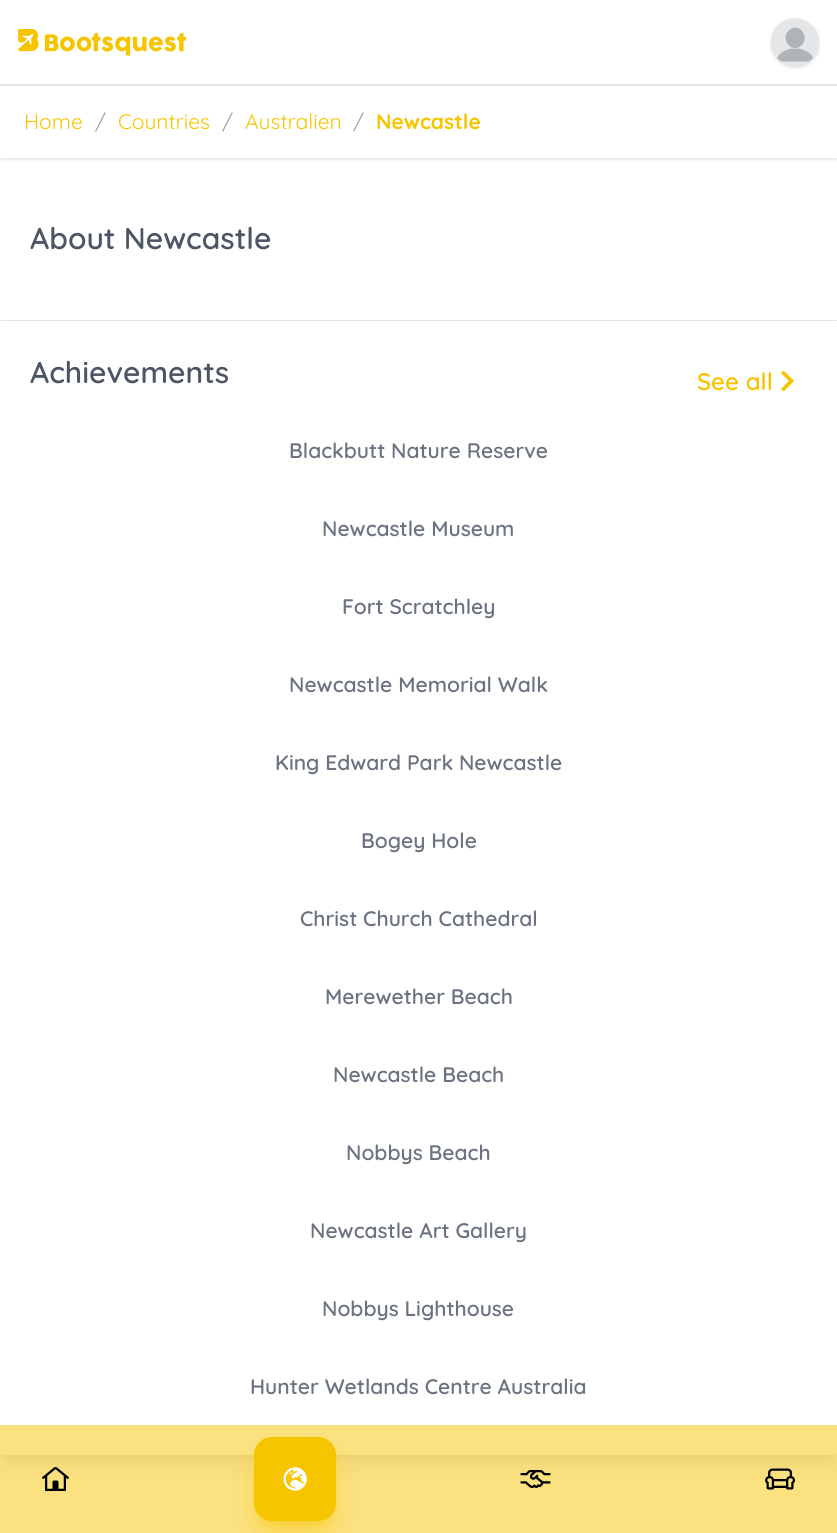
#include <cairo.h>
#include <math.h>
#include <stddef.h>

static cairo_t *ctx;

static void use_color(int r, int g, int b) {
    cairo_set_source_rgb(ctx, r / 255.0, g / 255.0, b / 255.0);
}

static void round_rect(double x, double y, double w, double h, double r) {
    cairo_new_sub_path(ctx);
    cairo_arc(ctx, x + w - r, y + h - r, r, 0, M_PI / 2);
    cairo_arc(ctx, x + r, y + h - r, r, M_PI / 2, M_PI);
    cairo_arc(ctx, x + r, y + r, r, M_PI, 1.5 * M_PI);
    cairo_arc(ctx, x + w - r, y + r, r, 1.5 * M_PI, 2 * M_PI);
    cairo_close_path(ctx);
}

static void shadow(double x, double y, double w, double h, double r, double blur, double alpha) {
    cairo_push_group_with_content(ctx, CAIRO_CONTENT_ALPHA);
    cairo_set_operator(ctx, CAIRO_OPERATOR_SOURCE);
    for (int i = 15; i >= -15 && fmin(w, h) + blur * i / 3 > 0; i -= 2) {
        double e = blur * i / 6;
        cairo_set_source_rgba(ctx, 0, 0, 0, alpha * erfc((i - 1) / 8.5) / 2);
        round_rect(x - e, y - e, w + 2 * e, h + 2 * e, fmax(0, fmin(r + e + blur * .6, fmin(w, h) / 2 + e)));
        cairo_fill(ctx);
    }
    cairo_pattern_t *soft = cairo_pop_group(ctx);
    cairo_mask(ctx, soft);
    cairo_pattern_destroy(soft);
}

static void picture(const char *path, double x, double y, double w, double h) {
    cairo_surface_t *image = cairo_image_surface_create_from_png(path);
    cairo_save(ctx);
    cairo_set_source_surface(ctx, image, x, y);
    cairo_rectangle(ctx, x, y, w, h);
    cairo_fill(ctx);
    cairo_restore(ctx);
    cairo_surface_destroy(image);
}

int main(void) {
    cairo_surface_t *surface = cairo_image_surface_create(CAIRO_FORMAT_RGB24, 837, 1533);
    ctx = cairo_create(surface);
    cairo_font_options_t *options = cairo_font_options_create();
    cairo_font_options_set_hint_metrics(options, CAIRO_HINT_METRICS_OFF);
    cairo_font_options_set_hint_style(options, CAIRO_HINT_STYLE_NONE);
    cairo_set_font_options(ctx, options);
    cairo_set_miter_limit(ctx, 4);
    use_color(255, 255, 255);
    cairo_paint(ctx);
    use_color(229, 231, 235);
    cairo_rectangle(ctx, 0, 84, 837, 2);
    cairo_fill(ctx);
    picture("img1.png", 18, 29, 168, 27);
    use_color(0, 0, 0);
    shadow(773, 21, 45, 45, 22.5, 1.5, 0.1);
    shadow(771, 20, 48, 48, 24, 2, 0.1);
    picture("img2.png", 771, 18, 48, 48);
    shadow(2, 89, 834, 69, 0, 1.5, 0.1);
    shadow(0, 87, 837, 72, 0, 2, 0.1);
    use_color(255, 255, 255);
    cairo_rectangle(ctx, 0, 86, 837, 72);
    cairo_fill(ctx);
    cairo_select_font_face(ctx, "Quicksand", CAIRO_FONT_SLANT_NORMAL, CAIRO_FONT_WEIGHT_NORMAL);
    cairo_set_font_size(ctx, 21);
    use_color(247, 197, 0);
    cairo_move_to(ctx, 24, 129);
    cairo_show_text(ctx, "Home");
    use_color(156, 163, 175);
    cairo_move_to(ctx, 95, 129);
    cairo_show_text(ctx, "/");
    use_color(247, 197, 0);
    cairo_move_to(ctx, 118, 129);
    cairo_show_text(ctx, "Countries");
    use_color(156, 163, 175);
    cairo_move_to(ctx, 222, 129);
    cairo_show_text(ctx, "/");
    use_color(247, 197, 0);
    cairo_move_to(ctx, 245, 129);
    cairo_show_text(ctx, "Australien");
    use_color(156, 163, 175);
    cairo_move_to(ctx, 353, 129);
    cairo_show_text(ctx, "/");
    cairo_select_font_face(ctx, "Quicksand", CAIRO_FONT_SLANT_NORMAL, CAIRO_FONT_WEIGHT_BOLD);
    use_color(247, 197, 0);
    cairo_move_to(ctx, 376, 129);
    cairo_show_text(ctx, "Newcastle");
    cairo_select_font_face(ctx, "Quicksand SemiBold", CAIRO_FONT_SLANT_NORMAL, CAIRO_FONT_WEIGHT_NORMAL);
    cairo_set_font_size(ctx, 30);
    use_color(75, 85, 99);
    cairo_move_to(ctx, 30, 249);
    cairo_show_text(ctx, "About Newcastle");
    use_color(229, 231, 235);
    cairo_rectangle(ctx, 0, 320, 837, 1);
    cairo_fill(ctx);
    use_color(0, 0, 0);
    shadow(6, 333, 825, 1122, 0, 4.5, 0.1);
    shadow(5, 341, 828, 1125, 0, 11, 0.1);
    use_color(255, 255, 255);
    cairo_rectangle(ctx, 0, 325, 837, 1130);
    cairo_fill(ctx);
    use_color(75, 85, 99);
    cairo_move_to(ctx, 30, 383);
    cairo_show_text(ctx, "Achievements");
    cairo_set_font_size(ctx, 24);
    use_color(247, 197, 0);
    cairo_move_to(ctx, 697, 390);
    cairo_show_text(ctx, "See all");
    picture("img3.png", 781, 370, 13, 22);
    cairo_set_font_size(ctx, 21);
    use_color(107, 114, 128);
    cairo_move_to(ctx, 289, 458);
    cairo_show_text(ctx, "Blackbutt Nature Reserve");
    cairo_move_to(ctx, 322, 536);
    cairo_show_text(ctx, "Newcastle Museum");
    cairo_move_to(ctx, 342, 614);
    cairo_show_text(ctx, "Fort Scratchley");
    cairo_move_to(ctx, 289, 692);
    cairo_show_text(ctx, "Newcastle Memorial Walk");
    cairo_move_to(ctx, 275, 770);
    cairo_show_text(ctx, "King Edward Park Newcastle");
    cairo_move_to(ctx, 361, 848);
    cairo_show_text(ctx, "Bogey Hole");
    cairo_move_to(ctx, 300, 926);
    cairo_show_text(ctx, "Christ Church Cathedral");
    cairo_move_to(ctx, 325, 1004);
    cairo_show_text(ctx, "Merewether Beach");
    cairo_move_to(ctx, 333, 1082);
    cairo_show_text(ctx, "Newcastle Beach");
    cairo_move_to(ctx, 346, 1160);
    cairo_show_text(ctx, "Nobbys Beach");
    cairo_move_to(ctx, 310, 1238);
    cairo_show_text(ctx, "Newcastle Art Gallery");
    cairo_move_to(ctx, 322, 1316);
    cairo_show_text(ctx, "Nobbys Lighthouse");
    cairo_move_to(ctx, 250, 1394);
    cairo_show_text(ctx, "Hunter Wetlands Centre Australia");
    cairo_set_source_rgba(ctx, 0.969, 0.773, 0, 0.5);
    cairo_rectangle(ctx, 0, 1425, 837, 108);
    cairo_fill(ctx);
    picture("img4.png", 42, 1467, 27, 24);
    use_color(247, 197, 0);
    shadow(260, 1449, 70, 72, 12, 4.5, 0.5);
    shadow(258, 1457, 74, 75, 14, 11, 0.5);
    use_color(247, 197, 0);
    round_rect(254, 1437, 82, 84, 18);
    cairo_fill(ctx);
    picture("img5.png", 283, 1467, 24, 24);
    picture("img6.png", 520, 1470, 31, 18);
    picture("img7.png", 765, 1468, 30, 22);
    cairo_surface_write_to_png(surface, "result.png");
    cairo_font_options_destroy(options);
    cairo_destroy(ctx);
    cairo_surface_destroy(surface);
    return 0;
}
